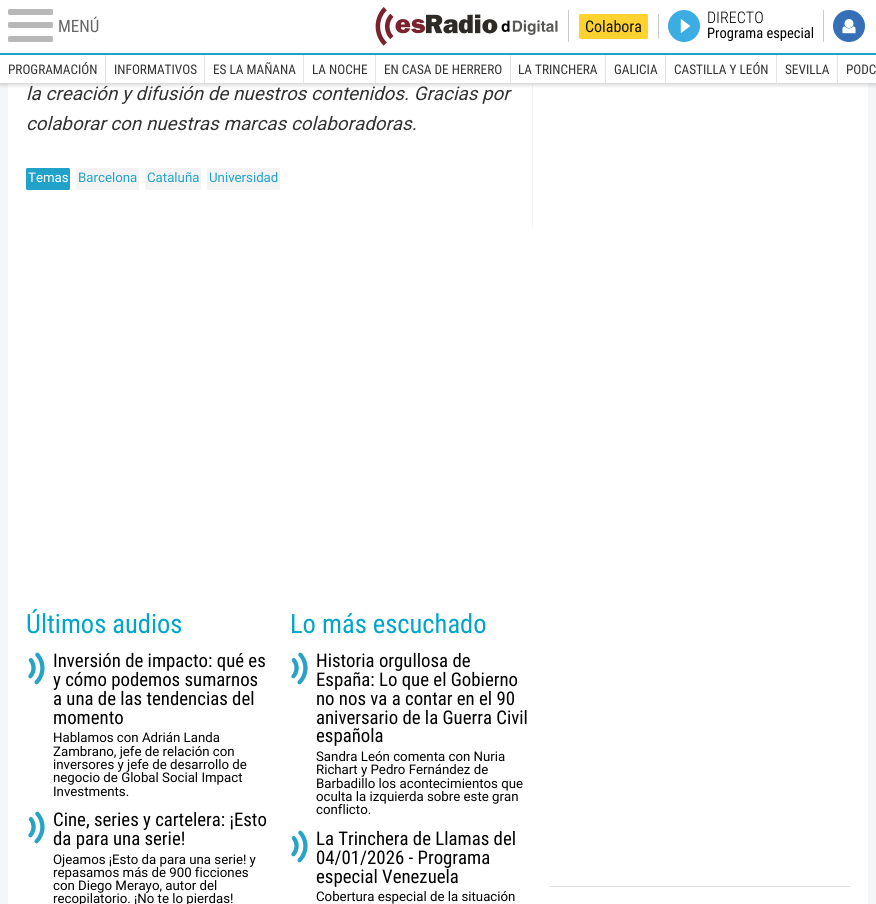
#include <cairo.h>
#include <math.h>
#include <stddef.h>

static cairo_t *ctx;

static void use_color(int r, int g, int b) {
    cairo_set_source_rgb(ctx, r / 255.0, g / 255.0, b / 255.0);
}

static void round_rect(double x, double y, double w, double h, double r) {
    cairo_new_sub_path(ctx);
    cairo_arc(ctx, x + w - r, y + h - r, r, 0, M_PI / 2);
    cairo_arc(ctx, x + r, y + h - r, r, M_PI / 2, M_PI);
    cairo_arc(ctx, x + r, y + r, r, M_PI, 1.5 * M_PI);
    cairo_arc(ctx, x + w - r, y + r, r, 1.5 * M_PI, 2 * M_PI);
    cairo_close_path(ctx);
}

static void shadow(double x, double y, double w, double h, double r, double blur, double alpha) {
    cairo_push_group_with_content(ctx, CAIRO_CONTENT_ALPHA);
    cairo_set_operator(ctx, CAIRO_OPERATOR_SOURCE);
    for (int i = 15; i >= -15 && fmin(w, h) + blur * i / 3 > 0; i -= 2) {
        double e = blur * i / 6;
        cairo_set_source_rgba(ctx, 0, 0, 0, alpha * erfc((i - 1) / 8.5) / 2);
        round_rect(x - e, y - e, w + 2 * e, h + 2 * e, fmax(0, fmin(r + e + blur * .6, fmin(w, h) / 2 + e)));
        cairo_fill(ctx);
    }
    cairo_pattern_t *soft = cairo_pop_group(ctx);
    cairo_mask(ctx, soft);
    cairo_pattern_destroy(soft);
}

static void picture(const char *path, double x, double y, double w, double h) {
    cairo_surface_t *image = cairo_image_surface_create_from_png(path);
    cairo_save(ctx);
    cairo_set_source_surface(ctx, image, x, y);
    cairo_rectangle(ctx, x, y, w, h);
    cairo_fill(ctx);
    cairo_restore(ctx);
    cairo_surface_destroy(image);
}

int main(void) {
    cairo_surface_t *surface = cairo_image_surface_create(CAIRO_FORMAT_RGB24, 876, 904);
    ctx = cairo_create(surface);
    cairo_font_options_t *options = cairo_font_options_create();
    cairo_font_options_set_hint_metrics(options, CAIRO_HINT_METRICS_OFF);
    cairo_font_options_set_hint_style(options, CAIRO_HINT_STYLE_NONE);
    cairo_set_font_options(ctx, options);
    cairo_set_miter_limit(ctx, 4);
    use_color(245, 246, 248);
    cairo_paint(ctx);
    use_color(255, 255, 255);
    cairo_rectangle(ctx, 0, 0, 876, 53);
    cairo_fill(ctx);
    use_color(33, 163, 201);
    cairo_rectangle(ctx, 0, 53, 876, 2);
    cairo_fill(ctx);
    use_color(184, 184, 184);
    round_rect(8, 9, 45, 6, 1.5);
    cairo_fill(ctx);
    round_rect(8, 22, 45, 6, 1.5);
    cairo_fill(ctx);
    round_rect(8, 36, 45, 6, 1.5);
    cairo_fill(ctx);
    cairo_select_font_face(ctx, "Roboto Condensed", CAIRO_FONT_SLANT_NORMAL, CAIRO_FONT_WEIGHT_NORMAL);
    cairo_set_font_size(ctx, 17);
    use_color(102, 102, 102);
    cairo_move_to(ctx, 58, 32);
    cairo_show_text(ctx, "MENÚ");
    picture("img1.png", 375, 7, 123, 39);
    use_color(204, 204, 204);
    cairo_rectangle(ctx, 568, 10, 1, 32);
    cairo_fill(ctx);
    picture("img2.png", 501, 20, 57, 15);
    cairo_rectangle(ctx, 658, 14, 1, 25);
    cairo_fill(ctx);
    use_color(254, 211, 48);
    round_rect(579, 14, 69, 25, 1.5);
    cairo_fill(ctx);
    cairo_set_font_size(ctx, 16);
    use_color(17, 17, 17);
    cairo_move_to(ctx, 585, 32);
    cairo_show_text(ctx, "Colabora");
    use_color(204, 204, 204);
    cairo_rectangle(ctx, 823, 10, 1, 32);
    cairo_fill(ctx);
    picture("img3.png", 668, 10, 32, 32);
    cairo_select_font_face(ctx, "Roboto Condensed Light", CAIRO_FONT_SLANT_NORMAL, CAIRO_FONT_WEIGHT_NORMAL);
    use_color(0, 0, 0);
    cairo_move_to(ctx, 707, 23);
    cairo_show_text(ctx, "DIRECTO");
    cairo_select_font_face(ctx, "Roboto Condensed", CAIRO_FONT_SLANT_NORMAL, CAIRO_FONT_WEIGHT_NORMAL);
    cairo_set_font_size(ctx, 14.5);
    cairo_move_to(ctx, 707, 38);
    cairo_show_text(ctx, "Programa especial");
    use_color(53, 112, 182);
    cairo_new_path(ctx);
    cairo_arc(ctx, 849, 26, 16, 0, 2 * M_PI);
    cairo_fill(ctx);
    picture("img4.png", 842, 19, 14, 15);
    use_color(255, 255, 255);
    cairo_rectangle(ctx, 8, 83, 860, 821);
    cairo_fill(ctx);
    use_color(243, 243, 243);
    cairo_rectangle(ctx, 532, 83, 1, 144);
    cairo_fill(ctx);
    use_color(50, 50, 50);
    shadow(0, 57, 876, 28, 0, 2, 0.22);
    use_color(255, 255, 255);
    cairo_rectangle(ctx, 0, 55, 876, 28);
    cairo_fill(ctx);
    cairo_set_font_size(ctx, 13.25);
    use_color(51, 51, 51);
    cairo_move_to(ctx, 8, 74);
    cairo_show_text(ctx, "PROGRAMACIÓN");
    use_color(229, 229, 229);
    cairo_rectangle(ctx, 105, 55, 1, 28);
    cairo_fill(ctx);
    use_color(51, 51, 51);
    cairo_move_to(ctx, 114, 74);
    cairo_show_text(ctx, "INFORMATIVOS");
    use_color(229, 229, 229);
    cairo_rectangle(ctx, 204, 55, 1, 28);
    cairo_fill(ctx);
    use_color(51, 51, 51);
    cairo_move_to(ctx, 213, 74);
    cairo_show_text(ctx, "ES LA MAÑANA");
    use_color(229, 229, 229);
    cairo_rectangle(ctx, 303, 55, 1, 28);
    cairo_fill(ctx);
    use_color(51, 51, 51);
    cairo_move_to(ctx, 312, 74);
    cairo_show_text(ctx, "LA NOCHE");
    use_color(229, 229, 229);
    cairo_rectangle(ctx, 375, 55, 1, 28);
    cairo_fill(ctx);
    use_color(51, 51, 51);
    cairo_move_to(ctx, 384, 74);
    cairo_show_text(ctx, "EN CASA DE HERRERO");
    use_color(229, 229, 229);
    cairo_rectangle(ctx, 510, 55, 1, 28);
    cairo_fill(ctx);
    use_color(51, 51, 51);
    cairo_move_to(ctx, 518, 74);
    cairo_show_text(ctx, "LA TRINCHERA");
    use_color(229, 229, 229);
    cairo_rectangle(ctx, 605, 55, 1, 28);
    cairo_fill(ctx);
    use_color(51, 51, 51);
    cairo_move_to(ctx, 614, 74);
    cairo_show_text(ctx, "GALICIA");
    use_color(229, 229, 229);
    cairo_rectangle(ctx, 665, 55, 1, 28);
    cairo_fill(ctx);
    use_color(51, 51, 51);
    cairo_move_to(ctx, 674, 74);
    cairo_show_text(ctx, "CASTILLA Y LEÓN");
    use_color(229, 229, 229);
    cairo_rectangle(ctx, 776, 55, 1, 28);
    cairo_fill(ctx);
    use_color(51, 51, 51);
    cairo_move_to(ctx, 785, 74);
    cairo_show_text(ctx, "SEVILLA");
    use_color(229, 229, 229);
    cairo_rectangle(ctx, 837, 55, 1, 28);
    cairo_fill(ctx);
    use_color(51, 51, 51);
    cairo_move_to(ctx, 846, 74);
    cairo_show_text(ctx, "PODC");
    cairo_select_font_face(ctx, "Roboto", CAIRO_FONT_SLANT_ITALIC, CAIRO_FONT_WEIGHT_NORMAL);
    cairo_set_font_size(ctx, 18.8);
    cairo_move_to(ctx, 26, 100);
    cairo_show_text(ctx, "la creación y difusión de nuestros contenidos. Gracias por");
    cairo_move_to(ctx, 26, 130);
    cairo_show_text(ctx, "colaborar con nuestras marcas colaboradoras.");
    use_color(33, 163, 201);
    round_rect(26, 168, 44, 22, 1.5);
    cairo_fill(ctx);
    cairo_select_font_face(ctx, "Roboto", CAIRO_FONT_SLANT_NORMAL, CAIRO_FONT_WEIGHT_NORMAL);
    cairo_set_font_size(ctx, 13.25);
    use_color(255, 255, 255);
    cairo_move_to(ctx, 28, 182);
    cairo_show_text(ctx, "Temas");
    use_color(243, 243, 243);
    round_rect(76, 168, 63, 22, 1.5);
    cairo_fill(ctx);
    use_color(33, 163, 201);
    cairo_move_to(ctx, 78, 182);
    cairo_show_text(ctx, "Barcelona");
    use_color(243, 243, 243);
    round_rect(145, 168, 56, 22, 1.5);
    cairo_fill(ctx);
    use_color(33, 163, 201);
    cairo_move_to(ctx, 147, 182);
    cairo_show_text(ctx, "Cataluña");
    use_color(243, 243, 243);
    round_rect(207, 168, 73, 22, 1.5);
    cairo_fill(ctx);
    use_color(33, 163, 201);
    cairo_move_to(ctx, 209, 182);
    cairo_show_text(ctx, "Universidad");
    cairo_select_font_face(ctx, "Roboto Condensed", CAIRO_FONT_SLANT_NORMAL, CAIRO_FONT_WEIGHT_NORMAL);
    cairo_set_font_size(ctx, 26.5);
    use_color(0, 165, 203);
    cairo_move_to(ctx, 26, 633);
    cairo_show_text(ctx, "Últimos audios");
    picture("img5.png", 28, 652, 17, 33);
    cairo_set_font_size(ctx, 18.8);
    use_color(0, 0, 0);
    cairo_move_to(ctx, 53, 667);
    cairo_show_text(ctx, "Inversión de impacto: qué es");
    cairo_move_to(ctx, 53, 686);
    cairo_show_text(ctx, "y cómo podemos sumarnos");
    cairo_move_to(ctx, 53, 705);
    cairo_show_text(ctx, "a una de las tendencias del");
    cairo_move_to(ctx, 53, 724);
    cairo_show_text(ctx, "momento");
    cairo_select_font_face(ctx, "Roboto", CAIRO_FONT_SLANT_NORMAL, CAIRO_FONT_WEIGHT_NORMAL);
    cairo_set_font_size(ctx, 13.25);
    cairo_move_to(ctx, 53, 742);
    cairo_show_text(ctx, "Hablamos con Adrián Landa");
    cairo_move_to(ctx, 53, 756);
    cairo_show_text(ctx, "Zambrano, jefe de relación con");
    cairo_move_to(ctx, 53, 769);
    cairo_show_text(ctx, "inversores y jefe de desarrollo de");
    cairo_move_to(ctx, 53, 782);
    cairo_show_text(ctx, "negocio de Global Social Impact");
    cairo_move_to(ctx, 53, 796);
    cairo_show_text(ctx, "Investments.");
    picture("img5.png", 28, 811, 17, 33);
    cairo_select_font_face(ctx, "Roboto Condensed", CAIRO_FONT_SLANT_NORMAL, CAIRO_FONT_WEIGHT_NORMAL);
    cairo_set_font_size(ctx, 18.8);
    cairo_move_to(ctx, 53, 826);
    cairo_show_text(ctx, "Cine, series y cartelera: ¡Esto");
    cairo_move_to(ctx, 53, 845);
    cairo_show_text(ctx, "da para una serie!");
    cairo_select_font_face(ctx, "Roboto", CAIRO_FONT_SLANT_NORMAL, CAIRO_FONT_WEIGHT_NORMAL);
    cairo_set_font_size(ctx, 13.25);
    cairo_move_to(ctx, 53, 864);
    cairo_show_text(ctx, "Ojeamos ¡Esto da para una serie! y");
    cairo_move_to(ctx, 53, 877);
    cairo_show_text(ctx, "repasamos más de 900 ficciones");
    cairo_move_to(ctx, 53, 890);
    cairo_show_text(ctx, "con Diego Merayo, autor del");
    cairo_move_to(ctx, 53, 903);
    cairo_show_text(ctx, "recopilatorio. ¡No te lo pierdas!");
    cairo_select_font_face(ctx, "Roboto Condensed", CAIRO_FONT_SLANT_NORMAL, CAIRO_FONT_WEIGHT_NORMAL);
    cairo_set_font_size(ctx, 26.5);
    use_color(0, 165, 203);
    cairo_move_to(ctx, 290, 633);
    cairo_show_text(ctx, "Lo más escuchado");
    picture("img5.png", 291, 652, 17, 33);
    cairo_set_font_size(ctx, 18.8);
    use_color(0, 0, 0);
    cairo_move_to(ctx, 316, 667);
    cairo_show_text(ctx, "Historia orgullosa de");
    cairo_move_to(ctx, 316, 686);
    cairo_show_text(ctx, "España: Lo que el Gobierno");
    cairo_move_to(ctx, 316, 705);
    cairo_show_text(ctx, "no nos va a contar en el 90");
    cairo_move_to(ctx, 316, 724);
    cairo_show_text(ctx, "aniversario de la Guerra Civil");
    cairo_move_to(ctx, 316, 742);
    cairo_show_text(ctx, "española");
    cairo_select_font_face(ctx, "Roboto", CAIRO_FONT_SLANT_NORMAL, CAIRO_FONT_WEIGHT_NORMAL);
    cairo_set_font_size(ctx, 13.25);
    cairo_move_to(ctx, 316, 761);
    cairo_show_text(ctx, "Sandra León comenta con Nuria");
    cairo_move_to(ctx, 316, 774);
    cairo_show_text(ctx, "Richart y Pedro Fernández de");
    cairo_move_to(ctx, 316, 788);
    cairo_show_text(ctx, "Barbadillo los acontecimientos que");
    cairo_move_to(ctx, 316, 801);
    cairo_show_text(ctx, "oculta la izquierda sobre este gran");
    cairo_move_to(ctx, 316, 814);
    cairo_show_text(ctx, "conflicto.");
    picture("img5.png", 291, 830, 17, 33);
    cairo_select_font_face(ctx, "Roboto Condensed", CAIRO_FONT_SLANT_NORMAL, CAIRO_FONT_WEIGHT_NORMAL);
    cairo_set_font_size(ctx, 18.8);
    cairo_move_to(ctx, 316, 845);
    cairo_show_text(ctx, "La Trinchera de Llamas del");
    cairo_move_to(ctx, 316, 864);
    cairo_show_text(ctx, "04/01/2026 - Programa");
    cairo_move_to(ctx, 316, 883);
    cairo_show_text(ctx, "especial Venezuela");
    cairo_select_font_face(ctx, "Roboto", CAIRO_FONT_SLANT_NORMAL, CAIRO_FONT_WEIGHT_NORMAL);
    cairo_set_font_size(ctx, 13.25);
    cairo_move_to(ctx, 316, 901);
    cairo_show_text(ctx, "Cobertura especial de la situación");
    use_color(225, 224, 224);
    cairo_rectangle(ctx, 550, 886, 300, 1);
    cairo_fill(ctx);
    cairo_surface_write_to_png(surface, "result.png");
    cairo_font_options_destroy(options);
    cairo_destroy(ctx);
    cairo_surface_destroy(surface);
    return 0;
}
